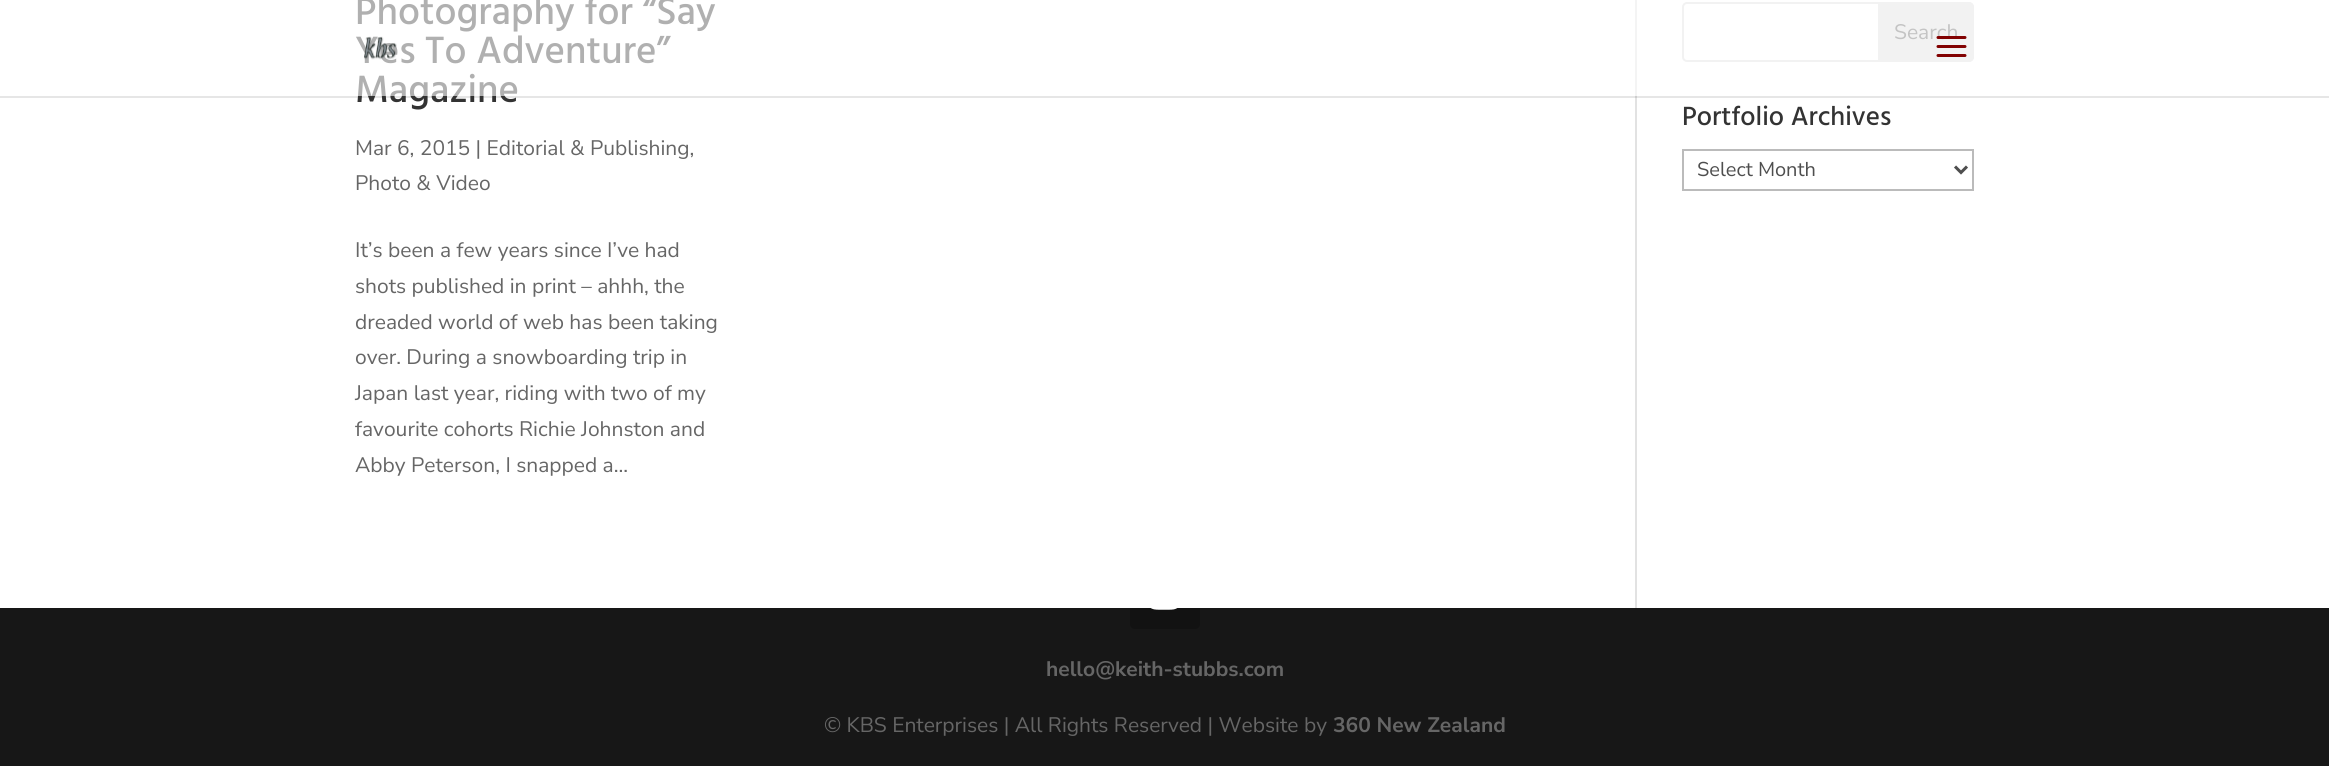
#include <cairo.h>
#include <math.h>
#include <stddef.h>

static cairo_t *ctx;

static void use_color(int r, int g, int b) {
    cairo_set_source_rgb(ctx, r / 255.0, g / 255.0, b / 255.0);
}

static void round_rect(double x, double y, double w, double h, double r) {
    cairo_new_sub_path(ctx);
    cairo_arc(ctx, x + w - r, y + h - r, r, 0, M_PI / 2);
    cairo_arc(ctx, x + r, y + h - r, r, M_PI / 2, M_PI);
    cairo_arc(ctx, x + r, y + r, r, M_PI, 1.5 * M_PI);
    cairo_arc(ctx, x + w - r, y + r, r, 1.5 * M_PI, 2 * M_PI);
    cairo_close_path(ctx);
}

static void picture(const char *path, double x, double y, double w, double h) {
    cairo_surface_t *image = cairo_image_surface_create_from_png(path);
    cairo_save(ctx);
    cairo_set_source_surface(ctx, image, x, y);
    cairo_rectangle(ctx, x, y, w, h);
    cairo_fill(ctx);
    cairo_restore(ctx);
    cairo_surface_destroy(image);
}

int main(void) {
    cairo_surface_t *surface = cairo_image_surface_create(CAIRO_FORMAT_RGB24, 2329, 766);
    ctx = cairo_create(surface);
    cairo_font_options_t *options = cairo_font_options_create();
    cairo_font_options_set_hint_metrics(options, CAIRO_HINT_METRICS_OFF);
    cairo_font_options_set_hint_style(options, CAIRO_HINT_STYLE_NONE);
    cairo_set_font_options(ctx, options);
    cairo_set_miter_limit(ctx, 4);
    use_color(23, 23, 23);
    cairo_paint(ctx);
    use_color(18, 18, 18);
    round_rect(1130, 560, 70, 69, 5);
    cairo_fill(ctx);
    use_color(255, 255, 255);
    cairo_rectangle(ctx, 0, 0, 2329, 608);
    cairo_fill(ctx);
    use_color(226, 226, 226);
    cairo_rectangle(ctx, 1635, 0, 2, 608);
    cairo_fill(ctx);
    cairo_set_source_rgba(ctx, 0, 0, 0, 0.1);
    cairo_new_path(ctx);
    cairo_move_to(ctx, 0, 96);
    cairo_line_to(ctx, 0, 98);
    cairo_line_to(ctx, 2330, 98);
    cairo_line_to(ctx, 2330, 2);
    cairo_line_to(ctx, 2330, 96);
    cairo_close_path(ctx);
    cairo_fill(ctx);
    cairo_select_font_face(ctx, "Hind Guntur Medium", CAIRO_FONT_SLANT_NORMAL, CAIRO_FONT_WEIGHT_NORMAL);
    cairo_set_font_size(ctx, 39);
    use_color(51, 51, 51);
    cairo_move_to(ctx, 355, 24);
    cairo_show_text(ctx, "Photography for “Say");
    cairo_move_to(ctx, 355, 63);
    cairo_show_text(ctx, "Yes To Adventure”");
    cairo_move_to(ctx, 355, 102);
    cairo_show_text(ctx, "Magazine");
    round_rect(1683, 3, 290, 58, 4);
    use_color(221, 221, 221);
    cairo_stroke(ctx);
    cairo_new_path(ctx);
    cairo_move_to(ctx, 1879, 3);
    cairo_line_to(ctx, 1969, 3);
    cairo_curve_to(ctx, 1971, 3, 1973, 5, 1973, 7);
    cairo_line_to(ctx, 1973, 57);
    cairo_curve_to(ctx, 1973, 59, 1971, 61, 1969, 61);
    cairo_line_to(ctx, 1879, 61);
    cairo_close_path(ctx);
    cairo_fill_preserve(ctx);
    cairo_stroke(ctx);
    cairo_select_font_face(ctx, "Nunito Sans", CAIRO_FONT_SLANT_NORMAL, CAIRO_FONT_WEIGHT_NORMAL);
    cairo_set_font_size(ctx, 21);
    use_color(102, 102, 102);
    cairo_move_to(ctx, 1894, 39);
    cairo_show_text(ctx, "Search");
    cairo_set_source_rgba(ctx, 1, 1, 1, 0.61);
    cairo_rectangle(ctx, 355, 0, 1619, 96);
    cairo_fill(ctx);
    picture("img1.png", 364, 36, 33, 24);
    picture("img2.png", 1936, 36, 31, 21);
    use_color(102, 102, 102);
    cairo_move_to(ctx, 355, 155);
    cairo_show_text(ctx, "Mar 6, 2015 | Editorial & Publishing,");
    cairo_move_to(ctx, 355, 190);
    cairo_show_text(ctx, "Photo & Video");
    cairo_move_to(ctx, 355, 257);
    cairo_show_text(ctx, "It’s been a few years since I’ve had");
    cairo_move_to(ctx, 355, 293);
    cairo_show_text(ctx, "shots published in print – ahhh, the");
    cairo_move_to(ctx, 355, 329);
    cairo_show_text(ctx, "dreaded world of web has been taking");
    cairo_move_to(ctx, 355, 364);
    cairo_show_text(ctx, "over. During a snowboarding trip in");
    cairo_move_to(ctx, 355, 400);
    cairo_show_text(ctx, "Japan last year, riding with two of my");
    cairo_move_to(ctx, 355, 436);
    cairo_show_text(ctx, "favourite cohorts Richie Johnston and");
    cairo_move_to(ctx, 355, 472);
    cairo_show_text(ctx, "Abby Peterson, I snapped a...");
    cairo_select_font_face(ctx, "Hind Guntur Medium", CAIRO_FONT_SLANT_NORMAL, CAIRO_FONT_WEIGHT_NORMAL);
    cairo_set_font_size(ctx, 27);
    use_color(51, 51, 51);
    cairo_move_to(ctx, 1682, 125);
    cairo_show_text(ctx, "Portfolio Archives");
    cairo_rectangle(ctx, 1683, 150, 290, 40);
    use_color(187, 187, 187);
    cairo_stroke(ctx);
    cairo_new_path(ctx);
    cairo_move_to(ctx, 1955, 166.5);
    cairo_line_to(ctx, 1961, 172.5);
    cairo_line_to(ctx, 1967, 166.5);
    use_color(78, 78, 78);
    cairo_set_line_width(ctx, 3);
    cairo_stroke(ctx);
    cairo_select_font_face(ctx, "Nunito Sans", CAIRO_FONT_SLANT_NORMAL, CAIRO_FONT_WEIGHT_NORMAL);
    cairo_set_font_size(ctx, 20);
    cairo_move_to(ctx, 1697, 176);
    cairo_show_text(ctx, "Select Month");
    picture("img3.png", 1150, 608, 28, 2);
    cairo_select_font_face(ctx, "Nunito Sans", CAIRO_FONT_SLANT_NORMAL, CAIRO_FONT_WEIGHT_BOLD);
    cairo_set_font_size(ctx, 21);
    use_color(102, 102, 102);
    cairo_move_to(ctx, 1046, 676);
    cairo_show_text(ctx, "hello@keith-stubbs.com");
    cairo_select_font_face(ctx, "Nunito Sans", CAIRO_FONT_SLANT_NORMAL, CAIRO_FONT_WEIGHT_NORMAL);
    cairo_move_to(ctx, 824, 732);
    cairo_show_text(ctx, "© KBS Enterprises | All Rights Reserved | Website by");
    cairo_select_font_face(ctx, "Nunito Sans", CAIRO_FONT_SLANT_NORMAL, CAIRO_FONT_WEIGHT_BOLD);
    cairo_move_to(ctx, 1333, 732);
    cairo_show_text(ctx, "360 New Zealand");
    cairo_surface_write_to_png(surface, "result.png");
    cairo_font_options_destroy(options);
    cairo_destroy(ctx);
    cairo_surface_destroy(surface);
    return 0;
}
